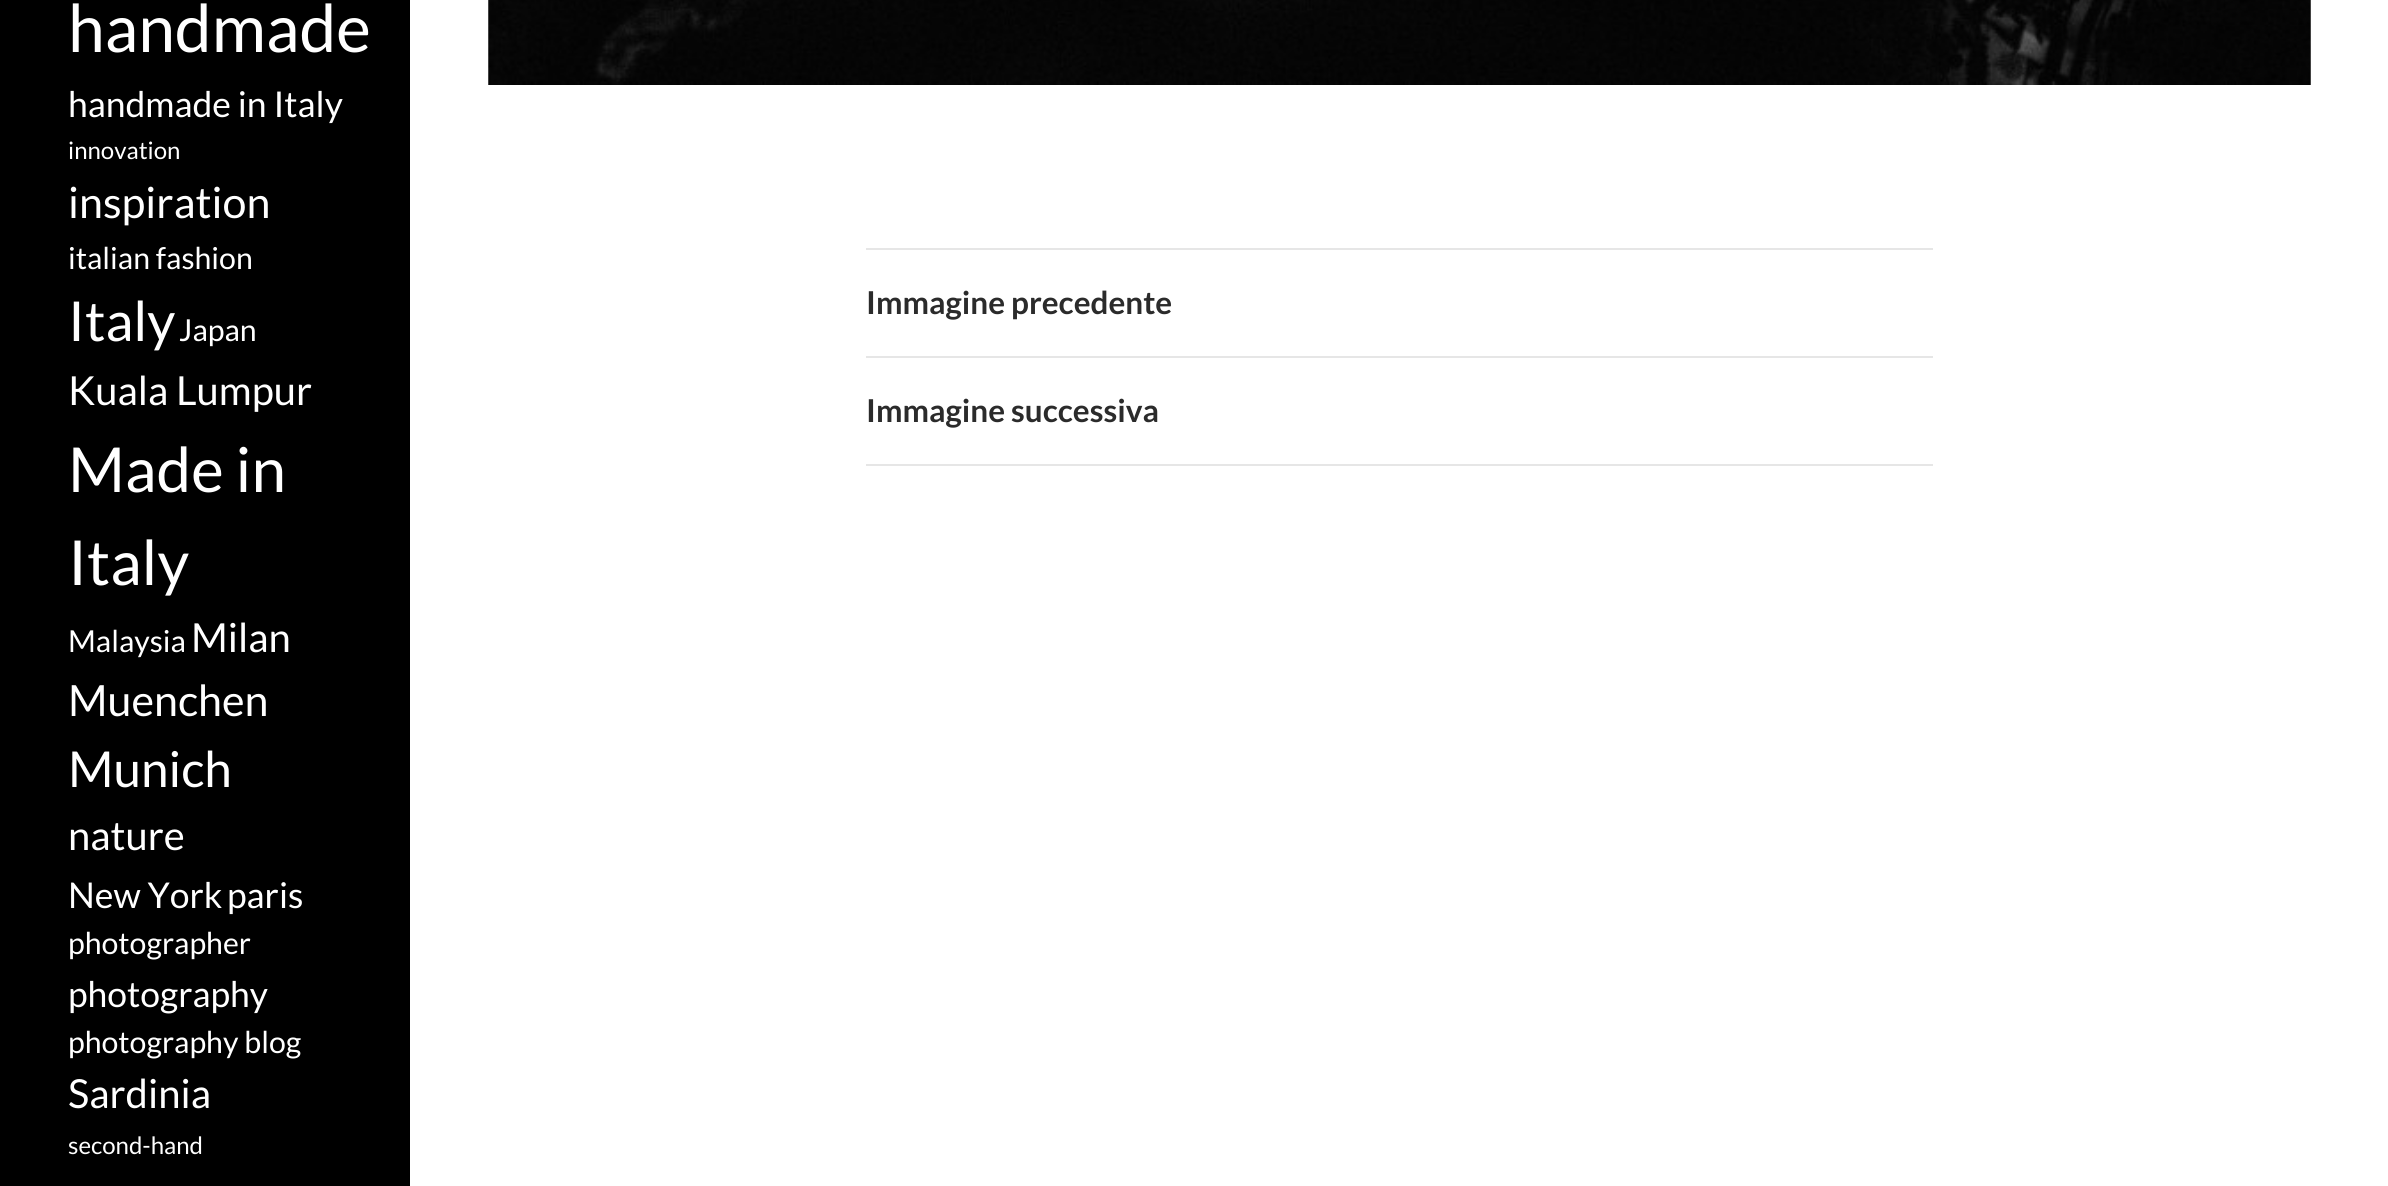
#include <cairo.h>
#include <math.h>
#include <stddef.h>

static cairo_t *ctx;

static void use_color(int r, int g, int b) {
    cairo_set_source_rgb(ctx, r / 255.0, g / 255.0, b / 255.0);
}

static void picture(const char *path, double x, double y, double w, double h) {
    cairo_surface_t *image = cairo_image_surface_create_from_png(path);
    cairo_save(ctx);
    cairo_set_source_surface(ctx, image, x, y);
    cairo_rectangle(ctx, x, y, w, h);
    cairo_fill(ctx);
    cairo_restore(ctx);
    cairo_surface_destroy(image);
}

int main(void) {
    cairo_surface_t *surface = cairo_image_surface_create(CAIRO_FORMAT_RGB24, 2388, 1186);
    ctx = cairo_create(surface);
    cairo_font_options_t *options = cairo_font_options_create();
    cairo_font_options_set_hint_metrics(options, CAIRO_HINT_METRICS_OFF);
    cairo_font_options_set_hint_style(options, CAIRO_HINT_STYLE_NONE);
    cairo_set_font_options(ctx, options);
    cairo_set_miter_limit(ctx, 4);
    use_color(255, 255, 255);
    cairo_paint(ctx);
    use_color(0, 0, 0);
    cairo_rectangle(ctx, 0, 0, 410, 1186);
    cairo_fill(ctx);
    cairo_select_font_face(ctx, "Lato", CAIRO_FONT_SLANT_NORMAL, CAIRO_FONT_WEIGHT_NORMAL);
    cairo_set_font_size(ctx, 66);
    use_color(255, 255, 255);
    cairo_move_to(ctx, 68, 52);
    cairo_show_text(ctx, "handmade");
    cairo_set_font_size(ctx, 35.5);
    cairo_move_to(ctx, 68, 117);
    cairo_show_text(ctx, "handmade in Italy");
    cairo_set_font_size(ctx, 24);
    cairo_move_to(ctx, 68, 159);
    cairo_show_text(ctx, "innovation");
    cairo_set_font_size(ctx, 43);
    cairo_move_to(ctx, 68, 218);
    cairo_show_text(ctx, "inspiration");
    cairo_set_font_size(ctx, 30.25);
    cairo_move_to(ctx, 68, 269);
    cairo_show_text(ctx, "italian fashion");
    cairo_set_font_size(ctx, 55);
    cairo_move_to(ctx, 68, 341);
    cairo_show_text(ctx, "Italy");
    cairo_set_font_size(ctx, 30.25);
    cairo_move_to(ctx, 179, 341);
    cairo_show_text(ctx, "Japan");
    cairo_set_font_size(ctx, 40);
    cairo_move_to(ctx, 68, 405);
    cairo_show_text(ctx, "Kuala Lumpur");
    cairo_set_font_size(ctx, 62);
    cairo_move_to(ctx, 68, 492);
    cairo_show_text(ctx, "Made in");
    cairo_move_to(ctx, 68, 585);
    cairo_show_text(ctx, "Italy");
    cairo_set_font_size(ctx, 30.25);
    cairo_move_to(ctx, 68, 652);
    cairo_show_text(ctx, "Malaysia");
    cairo_set_font_size(ctx, 40);
    cairo_move_to(ctx, 191, 652);
    cairo_show_text(ctx, "Milan");
    cairo_set_font_size(ctx, 43);
    cairo_move_to(ctx, 68, 716);
    cairo_show_text(ctx, "Muenchen");
    cairo_set_font_size(ctx, 49.5);
    cairo_move_to(ctx, 68, 787);
    cairo_show_text(ctx, "Munich");
    cairo_set_font_size(ctx, 40);
    cairo_move_to(ctx, 68, 850);
    cairo_show_text(ctx, "nature");
    cairo_set_font_size(ctx, 35.5);
    cairo_move_to(ctx, 68, 908);
    cairo_show_text(ctx, "New York");
    cairo_move_to(ctx, 227, 908);
    cairo_show_text(ctx, "paris");
    cairo_set_font_size(ctx, 30.25);
    cairo_move_to(ctx, 68, 954);
    cairo_show_text(ctx, "photographer");
    cairo_set_font_size(ctx, 35.5);
    cairo_move_to(ctx, 68, 1007);
    cairo_show_text(ctx, "photography");
    cairo_set_font_size(ctx, 30.25);
    cairo_move_to(ctx, 68, 1053);
    cairo_show_text(ctx, "photography blog");
    cairo_set_font_size(ctx, 40);
    cairo_move_to(ctx, 68, 1108);
    cairo_show_text(ctx, "Sardinia");
    cairo_set_font_size(ctx, 24);
    cairo_move_to(ctx, 68, 1154);
    cairo_show_text(ctx, "second-hand");
    picture("img1.png", 488, 0, 1823, 85);
    use_color(230, 230, 230);
    cairo_rectangle(ctx, 866, 248, 1067, 2);
    cairo_fill(ctx);
    cairo_rectangle(ctx, 866, 356, 1067, 2);
    cairo_fill(ctx);
    cairo_select_font_face(ctx, "Lato", CAIRO_FONT_SLANT_NORMAL, CAIRO_FONT_WEIGHT_BOLD);
    cairo_set_font_size(ctx, 31.5);
    use_color(43, 43, 43);
    cairo_move_to(ctx, 866, 314);
    cairo_show_text(ctx, "Immagine precedente");
    use_color(230, 230, 230);
    cairo_rectangle(ctx, 866, 464, 1067, 2);
    cairo_fill(ctx);
    use_color(43, 43, 43);
    cairo_move_to(ctx, 866, 422);
    cairo_show_text(ctx, "Immagine successiva");
    cairo_surface_write_to_png(surface, "result.png");
    cairo_font_options_destroy(options);
    cairo_destroy(ctx);
    cairo_surface_destroy(surface);
    return 0;
}
